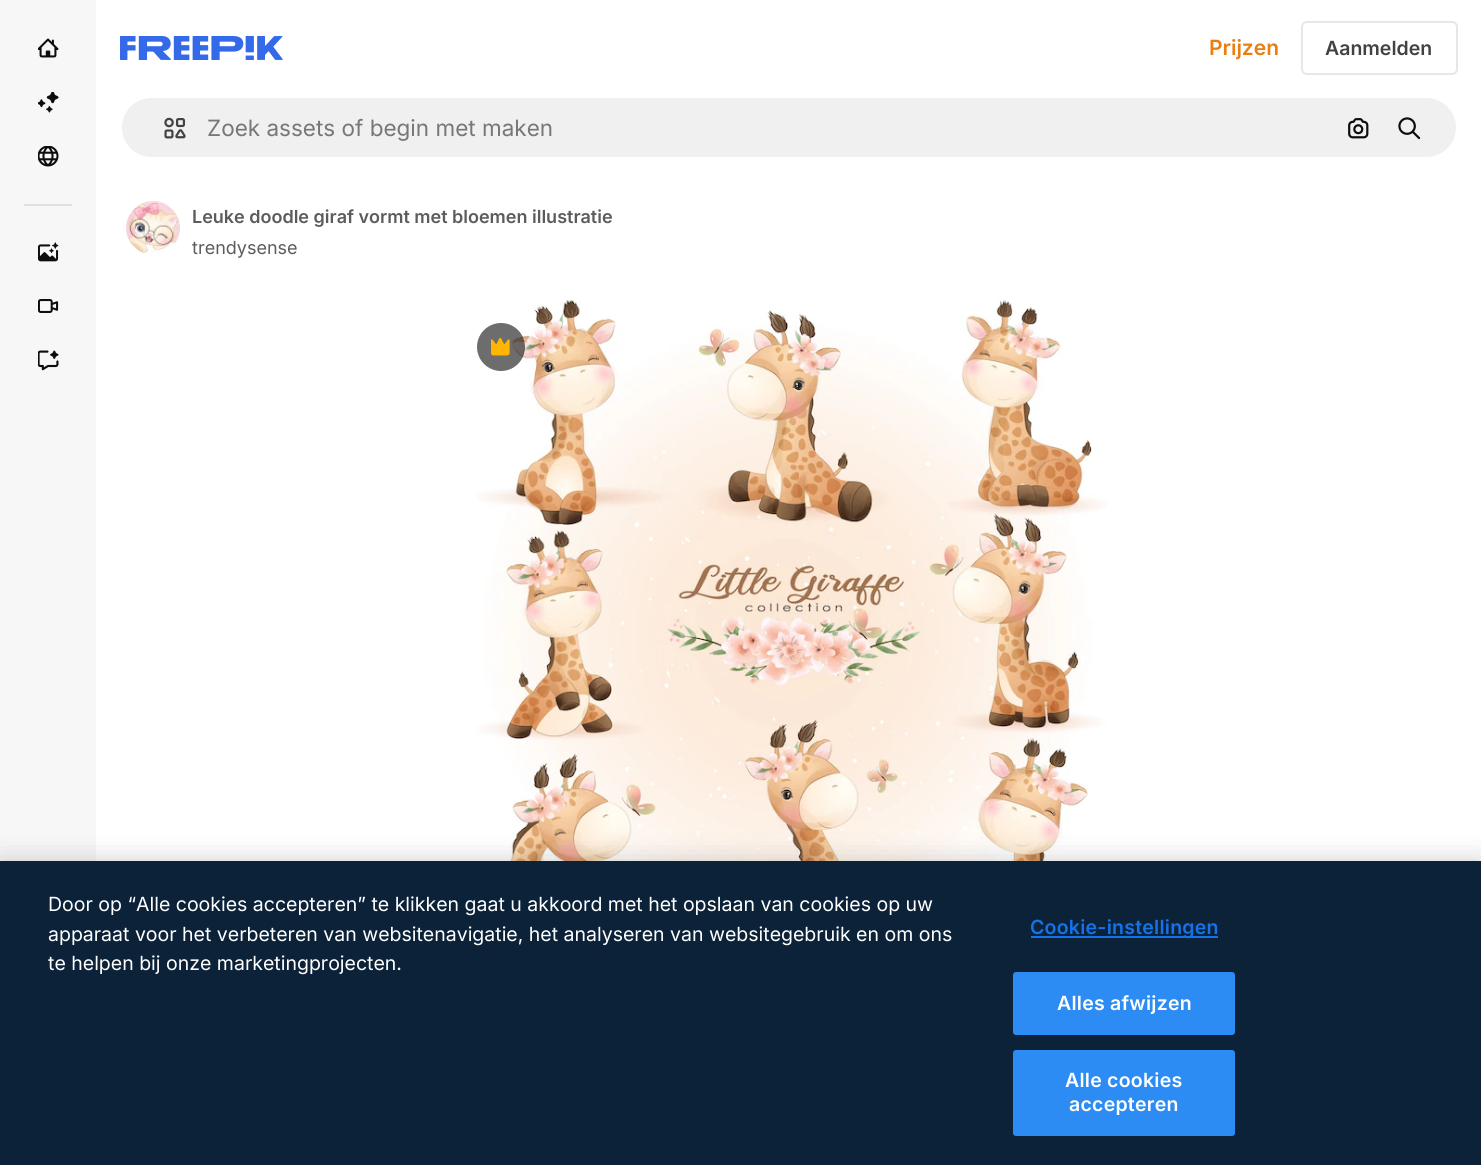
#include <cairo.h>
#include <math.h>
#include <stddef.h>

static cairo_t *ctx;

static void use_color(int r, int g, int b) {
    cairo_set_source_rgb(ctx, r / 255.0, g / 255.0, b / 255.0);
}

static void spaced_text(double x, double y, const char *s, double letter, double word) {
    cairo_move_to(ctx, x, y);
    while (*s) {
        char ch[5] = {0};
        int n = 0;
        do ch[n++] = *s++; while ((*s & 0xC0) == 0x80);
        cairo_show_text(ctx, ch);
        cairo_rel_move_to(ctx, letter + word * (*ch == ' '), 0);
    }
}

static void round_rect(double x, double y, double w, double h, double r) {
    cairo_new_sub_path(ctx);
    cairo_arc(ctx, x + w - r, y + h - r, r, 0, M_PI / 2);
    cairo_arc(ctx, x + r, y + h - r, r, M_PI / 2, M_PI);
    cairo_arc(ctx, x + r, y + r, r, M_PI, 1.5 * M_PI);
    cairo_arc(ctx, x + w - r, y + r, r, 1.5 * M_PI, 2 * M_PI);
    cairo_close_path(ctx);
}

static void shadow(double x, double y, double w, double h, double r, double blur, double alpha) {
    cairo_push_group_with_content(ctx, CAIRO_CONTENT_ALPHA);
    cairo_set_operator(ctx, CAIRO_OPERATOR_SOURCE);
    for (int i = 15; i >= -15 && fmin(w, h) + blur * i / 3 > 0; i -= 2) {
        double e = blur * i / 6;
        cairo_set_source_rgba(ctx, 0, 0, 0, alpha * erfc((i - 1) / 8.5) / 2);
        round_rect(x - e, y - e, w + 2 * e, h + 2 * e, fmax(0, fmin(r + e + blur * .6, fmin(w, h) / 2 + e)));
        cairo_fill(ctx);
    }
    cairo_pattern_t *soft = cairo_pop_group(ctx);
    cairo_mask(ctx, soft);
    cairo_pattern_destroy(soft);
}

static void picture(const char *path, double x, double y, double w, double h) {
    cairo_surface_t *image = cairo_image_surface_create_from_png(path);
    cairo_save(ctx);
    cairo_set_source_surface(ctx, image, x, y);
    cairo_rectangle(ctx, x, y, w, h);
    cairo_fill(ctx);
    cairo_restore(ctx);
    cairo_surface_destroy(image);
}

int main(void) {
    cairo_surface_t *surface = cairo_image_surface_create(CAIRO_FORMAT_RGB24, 1481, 1165);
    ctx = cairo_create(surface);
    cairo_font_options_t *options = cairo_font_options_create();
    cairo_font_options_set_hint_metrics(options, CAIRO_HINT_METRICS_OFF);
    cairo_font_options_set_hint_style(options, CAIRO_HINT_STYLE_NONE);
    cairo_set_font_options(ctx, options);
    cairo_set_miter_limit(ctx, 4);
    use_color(255, 255, 255);
    cairo_paint(ctx);
    use_color(247, 247, 247);
    cairo_rectangle(ctx, 0, 0, 96, 861);
    cairo_fill(ctx);
    picture("img1.png", 38, 38, 21, 20);
    picture("img2.png", 38, 92, 21, 21);
    picture("img3.png", 38, 146, 21, 21);
    use_color(224, 224, 224);
    cairo_rectangle(ctx, 24, 204, 48, 2);
    cairo_fill(ctx);
    picture("img4.png", 38, 242, 21, 20);
    picture("img5.png", 38, 299, 21, 14);
    picture("img6.png", 38, 350, 21, 21);
    picture("img7.png", 120, 36, 163, 24);
    cairo_select_font_face(ctx, "Inter SemiBold", CAIRO_FONT_SLANT_NORMAL, CAIRO_FONT_WEIGHT_NORMAL);
    cairo_set_font_size(ctx, 21);
    use_color(234, 126, 17);
    cairo_move_to(ctx, 1209, 55);
    cairo_show_text(ctx, "Prijzen");
    round_rect(1302, 22, 155, 52, 5);
    use_color(231, 231, 231);
    cairo_stroke(ctx);
    cairo_set_font_size(ctx, 19.5);
    use_color(66, 66, 66);
    cairo_move_to(ctx, 1325, 55);
    cairo_show_text(ctx, "Aanmelden");
    use_color(240, 240, 240);
    round_rect(121, 97, 1336, 61, 30.5);
    cairo_fill_preserve(ctx);
    use_color(255, 255, 255);
    cairo_stroke(ctx);
    picture("img8.png", 164, 117, 22, 22);
    cairo_select_font_face(ctx, "Inter", CAIRO_FONT_SLANT_NORMAL, CAIRO_FONT_WEIGHT_NORMAL);
    cairo_set_font_size(ctx, 22.5);
    use_color(119, 119, 119);
    cairo_move_to(ctx, 207, 136);
    cairo_show_text(ctx, "Zoek assets of begin met maken");
    picture("img9.png", 1348, 118, 21, 21);
    picture("img10.png", 1398, 117, 23, 23);
    picture("img11.png", 126, 201, 54, 53);
    cairo_select_font_face(ctx, "Inter SemiBold", CAIRO_FONT_SLANT_NORMAL, CAIRO_FONT_WEIGHT_NORMAL);
    cairo_set_font_size(ctx, 18);
    use_color(92, 92, 92);
    cairo_move_to(ctx, 192, 223);
    cairo_show_text(ctx, "Leuke doodle giraf vormt met bloemen illustratie");
    cairo_select_font_face(ctx, "Inter", CAIRO_FONT_SLANT_NORMAL, CAIRO_FONT_WEIGHT_NORMAL);
    cairo_move_to(ctx, 192, 254);
    cairo_show_text(ctx, "trendysense");
    picture("img12.png", 477, 299, 630, 562);
    cairo_set_source_rgba(ctx, 0.051, 0.051, 0.051, 0.6);
    cairo_arc(ctx, 501, 347, 24, 0, 2 * M_PI);
    cairo_fill(ctx);
    picture("img13.png", 491, 338, 19, 18);
    use_color(0, 0, 0);
    shadow(0, 861, 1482, 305, 0, 13.5, 0.2);
    use_color(11, 34, 57);
    cairo_rectangle(ctx, 0, 861, 1481, 304);
    cairo_fill(ctx);
    cairo_set_font_size(ctx, 19.5);
    use_color(255, 255, 255);
    cairo_move_to(ctx, 48, 911);
    cairo_show_text(ctx, "Door op “Alle cookies accepteren” te klikken gaat u akkoord met het opslaan van cookies op uw");
    cairo_move_to(ctx, 48, 941);
    cairo_show_text(ctx, "apparaat voor het verbeteren van websitenavigatie, het analyseren van websitegebruik en om ons");
    cairo_move_to(ctx, 48, 970);
    cairo_show_text(ctx, "te helpen bij onze marketingprojecten.");
    use_color(18, 115, 235);
    cairo_rectangle(ctx, 1031, 936, 187, 2);
    cairo_fill(ctx);
    cairo_select_font_face(ctx, "Inter SemiBold", CAIRO_FONT_SLANT_NORMAL, CAIRO_FONT_WEIGHT_NORMAL);
    spaced_text(1030, 934, "Cookie-instellingen", 0.25, 0);
    use_color(44, 140, 244);
    round_rect(1014, 973, 220, 61, 2);
    cairo_fill_preserve(ctx);
    cairo_stroke(ctx);
    use_color(255, 255, 255);
    spaced_text(1057, 1010, "Alles afwijzen", 0.25, 0);
    use_color(44, 140, 244);
    round_rect(1014, 1051, 220, 84, 2);
    cairo_fill_preserve(ctx);
    cairo_stroke(ctx);
    use_color(255, 255, 255);
    spaced_text(1065, 1087, "Alle cookies", 0.25, 0);
    spaced_text(1069, 1111, "accepteren", 0.25, 0);
    cairo_surface_write_to_png(surface, "result.png");
    cairo_font_options_destroy(options);
    cairo_destroy(ctx);
    cairo_surface_destroy(surface);
    return 0;
}
